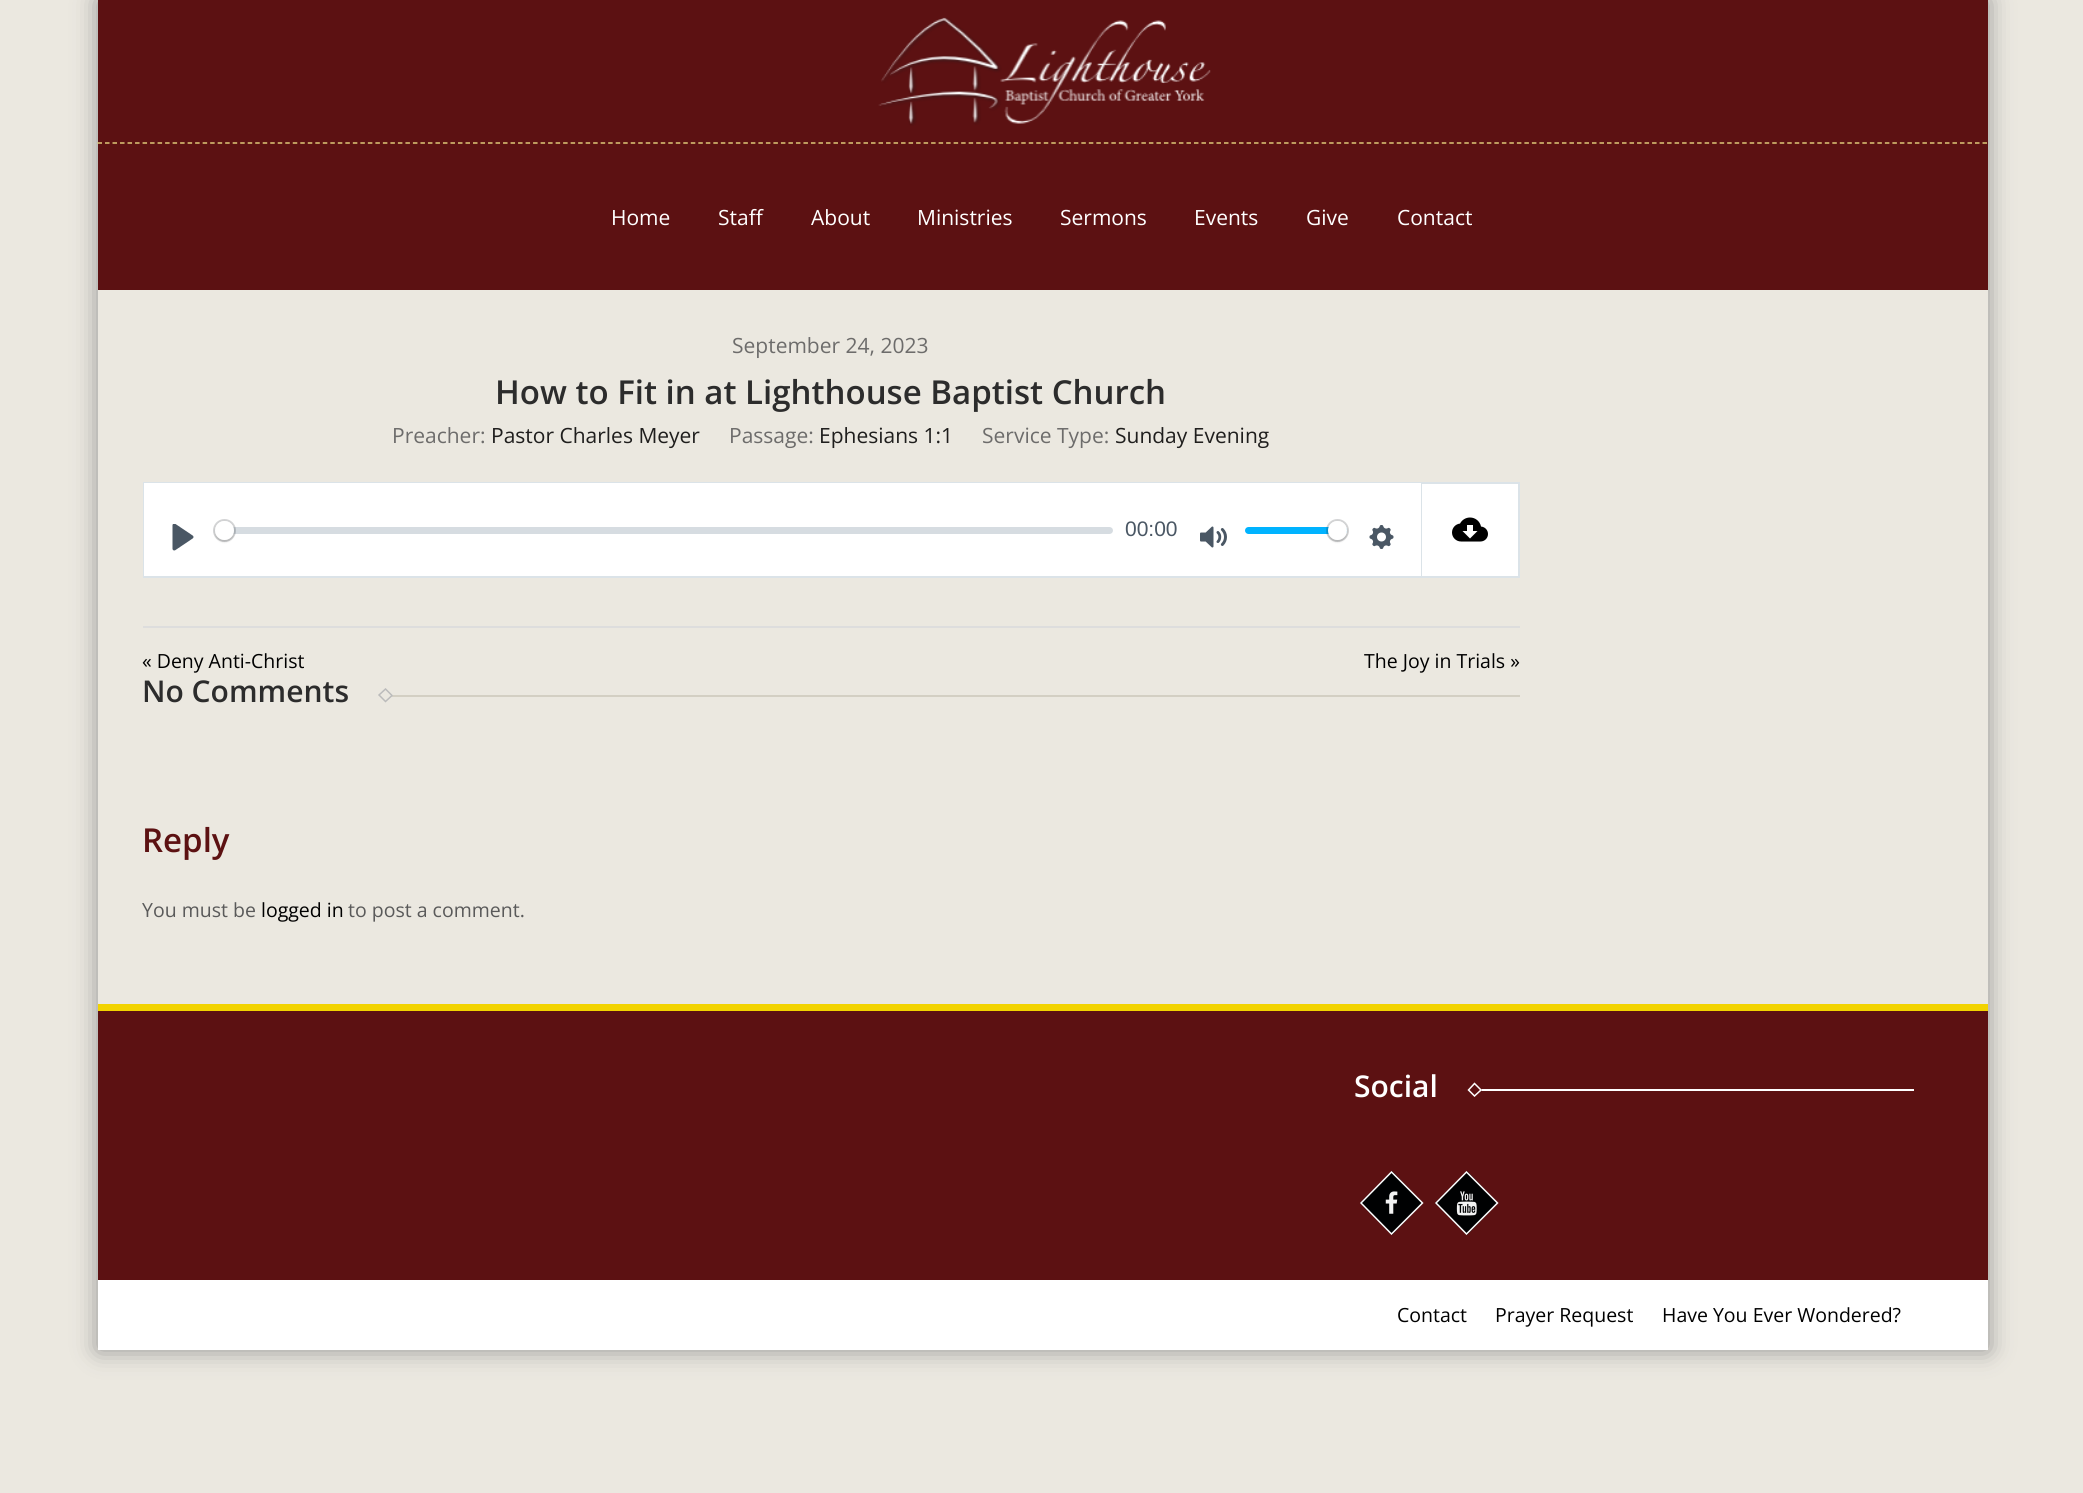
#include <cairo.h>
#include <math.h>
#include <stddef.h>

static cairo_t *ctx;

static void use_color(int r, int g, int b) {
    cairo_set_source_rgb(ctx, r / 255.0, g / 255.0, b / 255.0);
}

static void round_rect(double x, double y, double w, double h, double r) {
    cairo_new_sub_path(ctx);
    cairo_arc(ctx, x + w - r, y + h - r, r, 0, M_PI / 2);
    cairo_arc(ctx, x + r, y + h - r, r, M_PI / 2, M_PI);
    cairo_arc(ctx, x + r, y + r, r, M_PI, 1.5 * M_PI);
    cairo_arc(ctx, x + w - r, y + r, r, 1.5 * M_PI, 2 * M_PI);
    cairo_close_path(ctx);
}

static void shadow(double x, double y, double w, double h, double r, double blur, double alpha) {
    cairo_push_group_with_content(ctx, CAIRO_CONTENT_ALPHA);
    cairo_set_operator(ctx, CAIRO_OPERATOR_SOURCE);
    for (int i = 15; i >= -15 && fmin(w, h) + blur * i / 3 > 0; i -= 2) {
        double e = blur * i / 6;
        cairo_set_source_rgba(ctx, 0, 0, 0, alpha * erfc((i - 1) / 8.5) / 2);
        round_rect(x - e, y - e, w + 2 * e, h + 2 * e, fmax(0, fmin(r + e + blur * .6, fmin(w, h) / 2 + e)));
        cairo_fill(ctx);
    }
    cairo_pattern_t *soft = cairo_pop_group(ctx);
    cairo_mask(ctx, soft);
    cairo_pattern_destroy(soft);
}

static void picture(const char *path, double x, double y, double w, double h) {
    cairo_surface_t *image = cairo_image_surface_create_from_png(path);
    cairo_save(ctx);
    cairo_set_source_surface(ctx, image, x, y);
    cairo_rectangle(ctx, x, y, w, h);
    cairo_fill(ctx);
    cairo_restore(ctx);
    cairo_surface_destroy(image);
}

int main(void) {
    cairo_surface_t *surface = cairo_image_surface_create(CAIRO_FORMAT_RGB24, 2083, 1493);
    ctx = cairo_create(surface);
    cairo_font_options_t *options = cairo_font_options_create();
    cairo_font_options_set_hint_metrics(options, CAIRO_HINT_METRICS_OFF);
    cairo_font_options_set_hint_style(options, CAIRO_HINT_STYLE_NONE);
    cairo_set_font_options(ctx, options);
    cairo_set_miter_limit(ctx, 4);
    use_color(235, 232, 224);
    cairo_paint(ctx);
    cairo_save(ctx);
    cairo_set_fill_rule(ctx, CAIRO_FILL_RULE_EVEN_ODD);
    cairo_new_path(ctx);
    cairo_move_to(ctx, 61, 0);
    cairo_line_to(ctx, 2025, 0);
    cairo_line_to(ctx, 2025, 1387);
    cairo_line_to(ctx, 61, 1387);
    cairo_close_path(ctx);
    cairo_move_to(ctx, 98, 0);
    cairo_line_to(ctx, 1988, 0);
    cairo_line_to(ctx, 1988, 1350);
    cairo_line_to(ctx, 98, 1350);
    cairo_close_path(ctx);
    cairo_clip(ctx);
    use_color(147, 147, 147);
    shadow(98, 0, 1890, 1350, 0, 12, 1);
    cairo_restore(ctx);
    use_color(92, 17, 18);
    cairo_rectangle(ctx, 98, 0, 1890, 290);
    cairo_fill(ctx);
    cairo_new_path(ctx);
    cairo_move_to(ctx, 97.5, 143);
    cairo_line_to(ctx, 1987.5, 143);
    use_color(222, 201, 120);
    cairo_set_line_width(ctx, 1.5);
    cairo_set_dash(ctx, (double[]){4.5, 3.01}, 2, 0);
    cairo_stroke(ctx);
    picture("img1.png", 878, 17, 333, 109);
    cairo_select_font_face(ctx, "Open Sans", CAIRO_FONT_SLANT_NORMAL, CAIRO_FONT_WEIGHT_NORMAL);
    cairo_set_font_size(ctx, 21);
    use_color(255, 255, 255);
    cairo_move_to(ctx, 611, 225);
    cairo_show_text(ctx, "Home");
    cairo_move_to(ctx, 718, 225);
    cairo_show_text(ctx, "Staff");
    cairo_move_to(ctx, 811, 225);
    cairo_show_text(ctx, "About");
    cairo_move_to(ctx, 917, 225);
    cairo_show_text(ctx, "Ministries");
    cairo_move_to(ctx, 1060, 225);
    cairo_show_text(ctx, "Sermons");
    cairo_move_to(ctx, 1194, 225);
    cairo_show_text(ctx, "Events");
    cairo_move_to(ctx, 1306, 225);
    cairo_show_text(ctx, "Give");
    cairo_move_to(ctx, 1397, 225);
    cairo_show_text(ctx, "Contact");
    use_color(109, 108, 107);
    cairo_move_to(ctx, 732, 353);
    cairo_show_text(ctx, "September 24, 2023");
    cairo_select_font_face(ctx, "Open Sans SemiBold", CAIRO_FONT_SLANT_NORMAL, CAIRO_FONT_WEIGHT_NORMAL);
    cairo_set_font_size(ctx, 33);
    use_color(44, 44, 44);
    cairo_move_to(ctx, 495, 404);
    cairo_show_text(ctx, "How to Fit in at Lighthouse Baptist Church");
    cairo_select_font_face(ctx, "Open Sans", CAIRO_FONT_SLANT_NORMAL, CAIRO_FONT_WEIGHT_NORMAL);
    cairo_set_font_size(ctx, 21);
    use_color(109, 108, 107);
    cairo_move_to(ctx, 392, 443);
    cairo_show_text(ctx, "Preacher:");
    use_color(31, 30, 29);
    cairo_move_to(ctx, 491, 443);
    cairo_show_text(ctx, "Pastor Charles Meyer");
    use_color(109, 108, 107);
    cairo_move_to(ctx, 729, 443);
    cairo_show_text(ctx, "Passage:");
    use_color(31, 30, 29);
    cairo_move_to(ctx, 819, 443);
    cairo_show_text(ctx, "Ephesians 1:1");
    use_color(109, 108, 107);
    cairo_move_to(ctx, 982, 443);
    cairo_show_text(ctx, "Service Type:");
    use_color(31, 30, 29);
    cairo_move_to(ctx, 1115, 443);
    cairo_show_text(ctx, "Sunday Evening");
    cairo_rectangle(ctx, 144, 483, 1277, 94);
    use_color(219, 227, 232);
    cairo_set_line_width(ctx, 2);
    cairo_set_dash(ctx, NULL, 0, 0);
    cairo_stroke(ctx);
    use_color(255, 255, 255);
    cairo_rectangle(ctx, 144, 483, 1277, 93);
    cairo_fill(ctx);
    picture("img2.png", 172, 524, 22, 27);
    cairo_set_source_rgba(ctx, 0.757, 0.788, 0.82, 0.66);
    round_rect(215, 527, 898, 7, 3.5);
    cairo_fill(ctx);
    cairo_arc(ctx, 224.5, 530.5, 10.5, 0, 2 * M_PI);
    cairo_set_source_rgba(ctx, 0.137, 0.161, 0.184, 0.2);
    cairo_stroke(ctx);
    use_color(0, 0, 0);
    shadow(215, 522, 19, 20, 9.5, 1, 0.15);
    use_color(255, 255, 255);
    cairo_arc(ctx, 224.5, 530.5, 9.5, 0, 2 * M_PI);
    cairo_fill(ctx);
    cairo_select_font_face(ctx, "Liberation Sans", CAIRO_FONT_SLANT_NORMAL, CAIRO_FONT_WEIGHT_NORMAL);
    use_color(74, 87, 100);
    cairo_move_to(ctx, 1125, 536);
    cairo_show_text(ctx, "00:00");
    picture("img3.png", 1200, 526, 27, 22);
    use_color(0, 179, 255);
    round_rect(1245, 527, 102, 7, 3.5);
    cairo_fill(ctx);
    cairo_arc(ctx, 1337.5, 530.5, 10.5, 0, 2 * M_PI);
    cairo_set_source_rgba(ctx, 0.137, 0.161, 0.184, 0.2);
    cairo_stroke(ctx);
    use_color(0, 0, 0);
    shadow(1328, 522, 19, 20, 9.5, 1, 0.15);
    use_color(255, 255, 255);
    cairo_arc(ctx, 1337.5, 530.5, 9.5, 0, 2 * M_PI);
    cairo_fill(ctx);
    picture("img4.png", 1369, 525, 25, 24);
    cairo_rectangle(ctx, 1422, 484, 96, 92);
    cairo_fill(ctx);
    use_color(219, 227, 232);
    cairo_rectangle(ctx, 1422, 482, 98, 2);
    cairo_fill(ctx);
    cairo_rectangle(ctx, 1518, 482, 2, 96);
    cairo_fill(ctx);
    cairo_rectangle(ctx, 1422, 576, 98, 2);
    cairo_fill(ctx);
    picture("img5.png", 1452, 517, 36, 25);
    use_color(221, 221, 221);
    cairo_rectangle(ctx, 143, 626, 1377, 2);
    cairo_fill(ctx);
    cairo_select_font_face(ctx, "Open Sans", CAIRO_FONT_SLANT_NORMAL, CAIRO_FONT_WEIGHT_NORMAL);
    cairo_set_font_size(ctx, 19.5);
    use_color(0, 0, 0);
    cairo_move_to(ctx, 142, 668);
    cairo_show_text(ctx, "« Deny Anti-Christ");
    cairo_move_to(ctx, 1364, 668);
    cairo_show_text(ctx, "The Joy in Trials »");
    cairo_select_font_face(ctx, "Open Sans SemiBold", CAIRO_FONT_SLANT_NORMAL, CAIRO_FONT_WEIGHT_NORMAL);
    cairo_set_font_size(ctx, 30);
    use_color(44, 44, 44);
    cairo_move_to(ctx, 142, 702);
    cairo_show_text(ctx, "No Comments");
    use_color(211, 207, 195);
    cairo_rectangle(ctx, 391, 695, 1129, 2);
    cairo_fill(ctx);
    use_color(235, 232, 224);
    cairo_new_path(ctx);
    cairo_move_to(ctx, 378, 695);
    cairo_line_to(ctx, 385.5, 688);
    cairo_line_to(ctx, 393, 695);
    cairo_line_to(ctx, 385.5, 702.5);
    cairo_close_path(ctx);
    cairo_fill(ctx);
    cairo_new_path(ctx);
    cairo_move_to(ctx, 379, 695);
    cairo_line_to(ctx, 385.5, 689);
    cairo_line_to(ctx, 392, 695.5);
    cairo_line_to(ctx, 385.5, 701.5);
    cairo_close_path(ctx);
    use_color(187, 187, 187);
    cairo_set_line_width(ctx, 1.5);
    cairo_stroke(ctx);
    cairo_set_font_size(ctx, 33);
    use_color(92, 17, 18);
    cairo_move_to(ctx, 142, 852);
    cairo_show_text(ctx, "Reply");
    cairo_select_font_face(ctx, "Open Sans", CAIRO_FONT_SLANT_NORMAL, CAIRO_FONT_WEIGHT_NORMAL);
    cairo_set_font_size(ctx, 19.5);
    use_color(90, 90, 90);
    cairo_move_to(ctx, 142, 917);
    cairo_show_text(ctx, "You must be");
    use_color(0, 0, 0);
    cairo_move_to(ctx, 261, 917);
    cairo_show_text(ctx, "logged in");
    use_color(90, 90, 90);
    cairo_move_to(ctx, 348, 917);
    cairo_show_text(ctx, "to post a comment.");
    use_color(92, 17, 18);
    cairo_rectangle(ctx, 98, 1011, 1890, 269);
    cairo_fill(ctx);
    use_color(242, 211, 0);
    cairo_rectangle(ctx, 98, 1004, 1890, 7);
    cairo_fill(ctx);
    cairo_select_font_face(ctx, "Open Sans SemiBold", CAIRO_FONT_SLANT_NORMAL, CAIRO_FONT_WEIGHT_NORMAL);
    cairo_set_font_size(ctx, 30);
    use_color(255, 255, 255);
    cairo_move_to(ctx, 1354, 1097);
    cairo_show_text(ctx, "Social");
    cairo_rectangle(ctx, 1481, 1089, 433, 2);
    cairo_fill(ctx);
    use_color(92, 17, 18);
    cairo_new_path(ctx);
    cairo_move_to(ctx, 1467, 1090);
    cairo_line_to(ctx, 1474.5, 1082.5);
    cairo_line_to(ctx, 1482, 1090);
    cairo_line_to(ctx, 1474.5, 1097);
    cairo_close_path(ctx);
    cairo_fill(ctx);
    cairo_new_path(ctx);
    cairo_move_to(ctx, 1468.5, 1090);
    cairo_line_to(ctx, 1474.5, 1083.5);
    cairo_line_to(ctx, 1481, 1090);
    cairo_line_to(ctx, 1474.5, 1096);
    cairo_close_path(ctx);
    use_color(255, 255, 255);
    cairo_stroke(ctx);
    use_color(0, 1, 2);
    cairo_new_path(ctx);
    cairo_move_to(ctx, 1392, 1171);
    cairo_line_to(ctx, 1423, 1203);
    cairo_line_to(ctx, 1392, 1235);
    cairo_line_to(ctx, 1360, 1203);
    cairo_close_path(ctx);
    cairo_fill(ctx);
    cairo_new_path(ctx);
    cairo_move_to(ctx, 1391.5, 1172);
    cairo_line_to(ctx, 1422.5, 1203);
    cairo_line_to(ctx, 1391.5, 1234);
    cairo_line_to(ctx, 1361, 1203);
    cairo_close_path(ctx);
    use_color(255, 255, 255);
    cairo_stroke(ctx);
    picture("img6.png", 1385, 1191, 13, 23);
    use_color(0, 1, 2);
    cairo_new_path(ctx);
    cairo_move_to(ctx, 1467, 1171);
    cairo_line_to(ctx, 1498, 1203);
    cairo_line_to(ctx, 1467, 1235);
    cairo_line_to(ctx, 1435, 1203);
    cairo_close_path(ctx);
    cairo_fill(ctx);
    cairo_new_path(ctx);
    cairo_move_to(ctx, 1466.5, 1172);
    cairo_line_to(ctx, 1497.5, 1203);
    cairo_line_to(ctx, 1466.5, 1234);
    cairo_line_to(ctx, 1436, 1203);
    cairo_close_path(ctx);
    use_color(255, 255, 255);
    cairo_stroke(ctx);
    picture("img7.png", 1456, 1191, 21, 25);
    cairo_rectangle(ctx, 98, 1280, 1890, 70);
    cairo_fill(ctx);
    cairo_select_font_face(ctx, "Open Sans", CAIRO_FONT_SLANT_NORMAL, CAIRO_FONT_WEIGHT_NORMAL);
    cairo_set_font_size(ctx, 19.5);
    use_color(0, 0, 0);
    cairo_move_to(ctx, 1397, 1322);
    cairo_show_text(ctx, "Contact");
    cairo_move_to(ctx, 1495, 1322);
    cairo_show_text(ctx, "Prayer Request");
    cairo_move_to(ctx, 1662, 1322);
    cairo_show_text(ctx, "Have You Ever Wondered?");
    cairo_surface_write_to_png(surface, "result.png");
    cairo_font_options_destroy(options);
    cairo_destroy(ctx);
    cairo_surface_destroy(surface);
    return 0;
}
